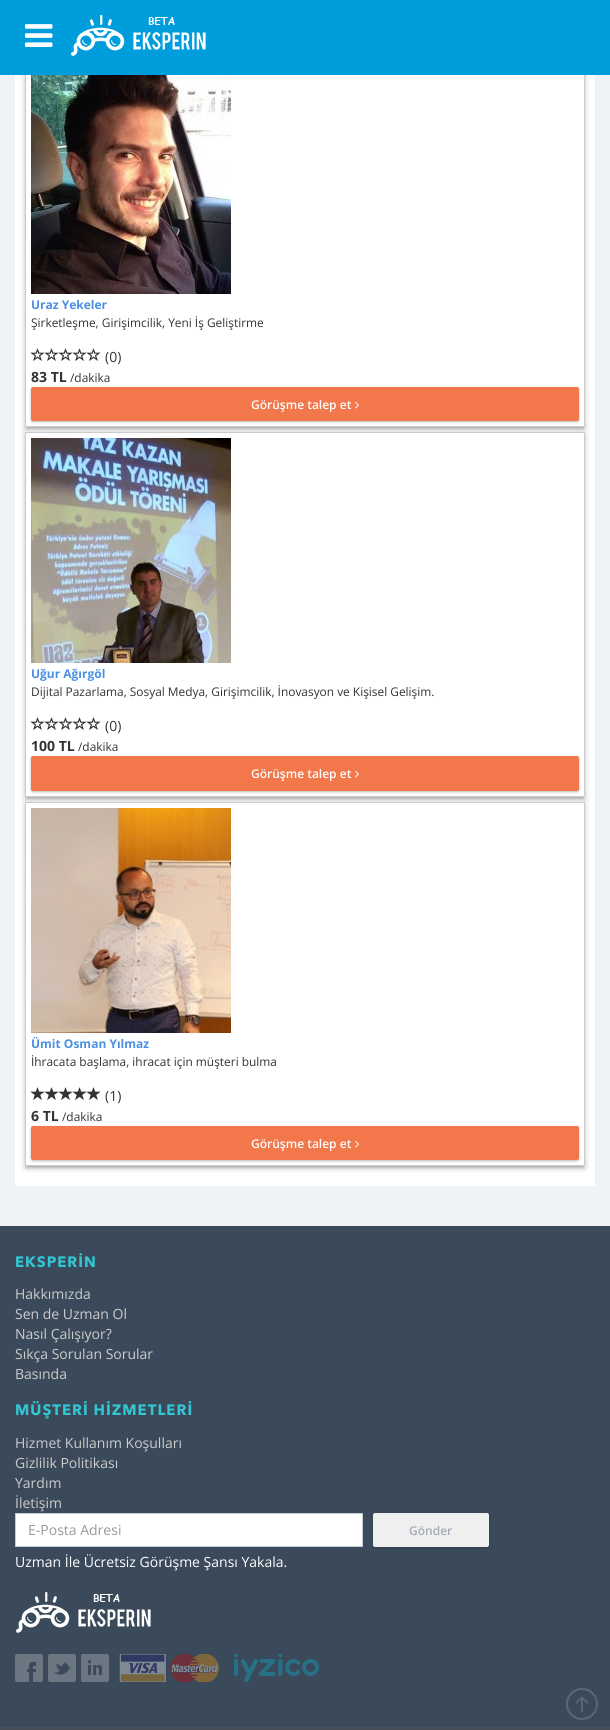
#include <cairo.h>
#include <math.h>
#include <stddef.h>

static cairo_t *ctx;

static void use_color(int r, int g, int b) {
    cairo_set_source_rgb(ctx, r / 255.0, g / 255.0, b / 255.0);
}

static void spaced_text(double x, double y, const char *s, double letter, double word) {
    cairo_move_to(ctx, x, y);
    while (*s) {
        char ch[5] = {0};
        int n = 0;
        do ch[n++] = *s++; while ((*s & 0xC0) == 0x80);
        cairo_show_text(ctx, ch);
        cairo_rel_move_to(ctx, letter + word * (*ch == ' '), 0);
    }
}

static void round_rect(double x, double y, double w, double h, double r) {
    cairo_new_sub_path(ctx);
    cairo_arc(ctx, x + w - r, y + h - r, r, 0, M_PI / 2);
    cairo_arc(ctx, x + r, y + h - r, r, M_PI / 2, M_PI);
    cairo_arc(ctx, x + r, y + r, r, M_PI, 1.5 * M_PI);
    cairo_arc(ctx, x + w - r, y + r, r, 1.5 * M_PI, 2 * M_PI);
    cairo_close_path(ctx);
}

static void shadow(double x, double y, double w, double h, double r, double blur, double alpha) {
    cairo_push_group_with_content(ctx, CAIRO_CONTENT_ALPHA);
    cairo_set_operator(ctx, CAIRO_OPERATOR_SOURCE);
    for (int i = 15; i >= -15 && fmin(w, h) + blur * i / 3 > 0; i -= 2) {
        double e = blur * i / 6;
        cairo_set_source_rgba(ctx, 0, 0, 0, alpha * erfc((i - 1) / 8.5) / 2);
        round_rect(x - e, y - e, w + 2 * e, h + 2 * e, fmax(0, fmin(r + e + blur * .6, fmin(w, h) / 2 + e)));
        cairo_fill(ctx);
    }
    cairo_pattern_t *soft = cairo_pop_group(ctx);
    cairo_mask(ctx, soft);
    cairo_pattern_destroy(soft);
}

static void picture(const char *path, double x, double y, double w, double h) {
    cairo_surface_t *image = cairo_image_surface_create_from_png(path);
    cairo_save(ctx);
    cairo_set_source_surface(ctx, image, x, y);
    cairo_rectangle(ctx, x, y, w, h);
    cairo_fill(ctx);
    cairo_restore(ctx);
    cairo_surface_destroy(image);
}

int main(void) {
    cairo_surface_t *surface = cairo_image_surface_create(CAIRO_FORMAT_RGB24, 610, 1730);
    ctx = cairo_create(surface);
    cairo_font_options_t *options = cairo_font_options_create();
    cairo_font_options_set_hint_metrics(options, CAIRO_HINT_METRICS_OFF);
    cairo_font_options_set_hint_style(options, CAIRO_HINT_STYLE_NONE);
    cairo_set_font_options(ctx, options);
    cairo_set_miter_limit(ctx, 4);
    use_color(239, 243, 248);
    cairo_paint(ctx);
    use_color(255, 255, 255);
    round_rect(15, -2, 580, 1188, 2);
    cairo_fill(ctx);
    cairo_save(ctx);
    cairo_set_fill_rule(ctx, CAIRO_FILL_RULE_EVEN_ODD);
    cairo_new_path(ctx);
    cairo_move_to(ctx, 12, 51);
    cairo_line_to(ctx, 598, 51);
    cairo_line_to(ctx, 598, 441);
    cairo_line_to(ctx, 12, 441);
    cairo_close_path(ctx);
    cairo_move_to(ctx, 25, 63);
    cairo_line_to(ctx, 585, 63);
    cairo_line_to(ctx, 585, 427);
    cairo_line_to(ctx, 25, 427);
    cairo_close_path(ctx);
    cairo_clip(ctx);
    use_color(0, 0, 0);
    shadow(25, 64, 560, 364, 0, 4, 0.12);
    cairo_restore(ctx);
    cairo_save(ctx);
    cairo_rectangle(ctx, 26, 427, 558, 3);
    cairo_clip(ctx);
    use_color(0, 0, 0);
    shadow(27, 68, 556, 360, 0, 1.5, 0.2);
    cairo_restore(ctx);
    cairo_save(ctx);
    cairo_set_fill_rule(ctx, CAIRO_FILL_RULE_EVEN_ODD);
    cairo_new_path(ctx);
    cairo_move_to(ctx, 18, 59);
    cairo_line_to(ctx, 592, 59);
    cairo_line_to(ctx, 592, 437);
    cairo_line_to(ctx, 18, 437);
    cairo_close_path(ctx);
    cairo_move_to(ctx, 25, 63);
    cairo_line_to(ctx, 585, 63);
    cairo_line_to(ctx, 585, 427);
    cairo_line_to(ctx, 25, 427);
    cairo_close_path(ctx);
    cairo_clip(ctx);
    use_color(0, 0, 0);
    shadow(25, 66, 560, 364, 0, 2, 0.14);
    cairo_restore(ctx);
    cairo_rectangle(ctx, 25.5, 63.5, 559, 363);
    use_color(204, 204, 204);
    cairo_set_line_width(ctx, 1);
    cairo_stroke(ctx);
    use_color(0, 157, 220);
    cairo_rectangle(ctx, 0, 0, 610, 75);
    cairo_fill(ctx);
    picture("img1.png", 25, 24, 28, 23);
    picture("img2.png", 71, 15, 135, 41);
    picture("img3.png", 31, 75, 200, 219);
    cairo_select_font_face(ctx, "Open Sans", CAIRO_FONT_SLANT_NORMAL, CAIRO_FONT_WEIGHT_BOLD);
    cairo_set_font_size(ctx, 12);
    use_color(74, 144, 226);
    cairo_move_to(ctx, 31, 309);
    cairo_show_text(ctx, "Uraz Yekeler");
    cairo_select_font_face(ctx, "Open Sans", CAIRO_FONT_SLANT_NORMAL, CAIRO_FONT_WEIGHT_NORMAL);
    cairo_set_font_size(ctx, 11.9);
    use_color(51, 51, 51);
    cairo_move_to(ctx, 31, 327);
    cairo_show_text(ctx, "Şirketleşme, Girişimcilik, Yeni İş Geliştirme");
    picture("img4.png", 30, 348, 15, 13);
    picture("img5.png", 44, 348, 15, 13);
    picture("img5.png", 58, 348, 15, 13);
    picture("img5.png", 72, 348, 15, 13);
    picture("img5.png", 86, 348, 15, 13);
    cairo_set_font_size(ctx, 14);
    cairo_move_to(ctx, 105, 362);
    cairo_show_text(ctx, "(0)");
    cairo_select_font_face(ctx, "Open Sans", CAIRO_FONT_SLANT_NORMAL, CAIRO_FONT_WEIGHT_BOLD);
    cairo_move_to(ctx, 31, 382);
    cairo_show_text(ctx, "83 TL");
    cairo_select_font_face(ctx, "Open Sans", CAIRO_FONT_SLANT_NORMAL, CAIRO_FONT_WEIGHT_NORMAL);
    cairo_set_font_size(ctx, 11.9);
    cairo_move_to(ctx, 70, 382);
    cairo_show_text(ctx, "/dakika");
    use_color(0, 0, 0);
    shadow(31, 388, 548, 34, 2, 1, 0.18);
    shadow(31, 388, 548, 34, 2, 1.5, 0.1);
    use_color(242, 120, 75);
    round_rect(31.5, 387.5, 547, 33, 1.5);
    cairo_fill_preserve(ctx);
    cairo_stroke(ctx);
    cairo_select_font_face(ctx, "Open Sans SemiBold", CAIRO_FONT_SLANT_NORMAL, CAIRO_FONT_WEIGHT_NORMAL);
    cairo_set_font_size(ctx, 12);
    use_color(255, 255, 255);
    cairo_move_to(ctx, 251, 409);
    cairo_show_text(ctx, "Görüşme talep et");
    picture("img6.png", 355, 401, 4, 8);
    cairo_save(ctx);
    cairo_set_fill_rule(ctx, CAIRO_FILL_RULE_EVEN_ODD);
    cairo_new_path(ctx);
    cairo_move_to(ctx, 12, 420);
    cairo_line_to(ctx, 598, 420);
    cairo_line_to(ctx, 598, 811);
    cairo_line_to(ctx, 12, 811);
    cairo_close_path(ctx);
    cairo_move_to(ctx, 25, 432);
    cairo_line_to(ctx, 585, 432);
    cairo_line_to(ctx, 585, 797);
    cairo_line_to(ctx, 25, 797);
    cairo_close_path(ctx);
    cairo_clip(ctx);
    use_color(0, 0, 0);
    shadow(25, 433, 560, 365, 0, 4, 0.12);
    cairo_restore(ctx);
    cairo_save(ctx);
    cairo_rectangle(ctx, 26, 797, 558, 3);
    cairo_clip(ctx);
    use_color(0, 0, 0);
    shadow(27, 437, 556, 361, 0, 1.5, 0.2);
    cairo_restore(ctx);
    cairo_save(ctx);
    cairo_set_fill_rule(ctx, CAIRO_FILL_RULE_EVEN_ODD);
    cairo_new_path(ctx);
    cairo_move_to(ctx, 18, 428);
    cairo_line_to(ctx, 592, 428);
    cairo_line_to(ctx, 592, 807);
    cairo_line_to(ctx, 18, 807);
    cairo_close_path(ctx);
    cairo_move_to(ctx, 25, 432);
    cairo_line_to(ctx, 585, 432);
    cairo_line_to(ctx, 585, 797);
    cairo_line_to(ctx, 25, 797);
    cairo_close_path(ctx);
    cairo_clip(ctx);
    use_color(0, 0, 0);
    shadow(25, 435, 560, 365, 0, 2, 0.14);
    cairo_restore(ctx);
    cairo_rectangle(ctx, 25.5, 432.5, 559, 364);
    use_color(204, 204, 204);
    cairo_stroke(ctx);
    picture("img7.png", 31, 438, 200, 225);
    cairo_select_font_face(ctx, "Open Sans", CAIRO_FONT_SLANT_NORMAL, CAIRO_FONT_WEIGHT_BOLD);
    use_color(74, 144, 226);
    cairo_move_to(ctx, 31, 678);
    cairo_show_text(ctx, "Uğur Ağırgöl");
    cairo_select_font_face(ctx, "Open Sans", CAIRO_FONT_SLANT_NORMAL, CAIRO_FONT_WEIGHT_NORMAL);
    cairo_set_font_size(ctx, 11.9);
    use_color(51, 51, 51);
    cairo_move_to(ctx, 31, 696);
    cairo_show_text(ctx, "Dijital Pazarlama, Sosyal Medya, Girişimcilik, İnovasyon ve Kişisel Gelişim.");
    picture("img4.png", 30, 717, 15, 13);
    picture("img5.png", 44, 717, 15, 13);
    picture("img5.png", 58, 717, 15, 13);
    picture("img5.png", 72, 717, 15, 13);
    picture("img5.png", 86, 717, 15, 13);
    cairo_set_font_size(ctx, 14);
    cairo_move_to(ctx, 105, 731);
    cairo_show_text(ctx, "(0)");
    cairo_select_font_face(ctx, "Open Sans", CAIRO_FONT_SLANT_NORMAL, CAIRO_FONT_WEIGHT_BOLD);
    cairo_move_to(ctx, 31, 751);
    cairo_show_text(ctx, "100 TL");
    cairo_select_font_face(ctx, "Open Sans", CAIRO_FONT_SLANT_NORMAL, CAIRO_FONT_WEIGHT_NORMAL);
    cairo_set_font_size(ctx, 11.9);
    cairo_move_to(ctx, 78, 751);
    cairo_show_text(ctx, "/dakika");
    use_color(0, 0, 0);
    shadow(31, 757, 548, 35, 2, 1, 0.18);
    shadow(31, 757, 548, 35, 2, 1.5, 0.1);
    use_color(242, 120, 75);
    round_rect(31.5, 756.5, 547, 34, 1.5);
    cairo_fill_preserve(ctx);
    cairo_stroke(ctx);
    cairo_select_font_face(ctx, "Open Sans SemiBold", CAIRO_FONT_SLANT_NORMAL, CAIRO_FONT_WEIGHT_NORMAL);
    cairo_set_font_size(ctx, 12);
    use_color(255, 255, 255);
    cairo_move_to(ctx, 251, 778);
    cairo_show_text(ctx, "Görüşme talep et");
    picture("img6.png", 355, 770, 4, 8);
    cairo_save(ctx);
    cairo_set_fill_rule(ctx, CAIRO_FILL_RULE_EVEN_ODD);
    cairo_new_path(ctx);
    cairo_move_to(ctx, 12, 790);
    cairo_line_to(ctx, 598, 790);
    cairo_line_to(ctx, 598, 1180);
    cairo_line_to(ctx, 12, 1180);
    cairo_close_path(ctx);
    cairo_move_to(ctx, 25, 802);
    cairo_line_to(ctx, 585, 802);
    cairo_line_to(ctx, 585, 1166);
    cairo_line_to(ctx, 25, 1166);
    cairo_close_path(ctx);
    cairo_clip(ctx);
    use_color(0, 0, 0);
    shadow(25, 803, 560, 364, 0, 4, 0.12);
    cairo_restore(ctx);
    cairo_save(ctx);
    cairo_rectangle(ctx, 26, 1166, 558, 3);
    cairo_clip(ctx);
    use_color(0, 0, 0);
    shadow(27, 807, 556, 360, 0, 1.5, 0.2);
    cairo_restore(ctx);
    cairo_save(ctx);
    cairo_set_fill_rule(ctx, CAIRO_FILL_RULE_EVEN_ODD);
    cairo_new_path(ctx);
    cairo_move_to(ctx, 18, 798);
    cairo_line_to(ctx, 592, 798);
    cairo_line_to(ctx, 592, 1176);
    cairo_line_to(ctx, 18, 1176);
    cairo_close_path(ctx);
    cairo_move_to(ctx, 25, 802);
    cairo_line_to(ctx, 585, 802);
    cairo_line_to(ctx, 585, 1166);
    cairo_line_to(ctx, 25, 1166);
    cairo_close_path(ctx);
    cairo_clip(ctx);
    use_color(0, 0, 0);
    shadow(25, 805, 560, 364, 0, 2, 0.14);
    cairo_restore(ctx);
    cairo_rectangle(ctx, 25.5, 802.5, 559, 363);
    use_color(204, 204, 204);
    cairo_stroke(ctx);
    picture("img8.png", 31, 808, 200, 225);
    cairo_select_font_face(ctx, "Open Sans", CAIRO_FONT_SLANT_NORMAL, CAIRO_FONT_WEIGHT_BOLD);
    use_color(74, 144, 226);
    cairo_move_to(ctx, 31, 1048);
    cairo_show_text(ctx, "Ümit Osman Yılmaz");
    cairo_select_font_face(ctx, "Open Sans", CAIRO_FONT_SLANT_NORMAL, CAIRO_FONT_WEIGHT_NORMAL);
    cairo_set_font_size(ctx, 11.9);
    use_color(51, 51, 51);
    cairo_move_to(ctx, 31, 1066);
    cairo_show_text(ctx, "İhracata başlama, ihracat için müşteri bulma");
    picture("img9.png", 30, 1087, 15, 13);
    picture("img10.png", 44, 1087, 15, 13);
    picture("img10.png", 58, 1087, 15, 13);
    picture("img10.png", 72, 1087, 15, 13);
    picture("img10.png", 86, 1087, 15, 13);
    cairo_set_font_size(ctx, 14);
    cairo_move_to(ctx, 105, 1101);
    cairo_show_text(ctx, "(1)");
    cairo_select_font_face(ctx, "Open Sans", CAIRO_FONT_SLANT_NORMAL, CAIRO_FONT_WEIGHT_BOLD);
    cairo_move_to(ctx, 31, 1121);
    cairo_show_text(ctx, "6 TL");
    cairo_select_font_face(ctx, "Open Sans", CAIRO_FONT_SLANT_NORMAL, CAIRO_FONT_WEIGHT_NORMAL);
    cairo_set_font_size(ctx, 11.9);
    cairo_move_to(ctx, 62, 1121);
    cairo_show_text(ctx, "/dakika");
    use_color(0, 0, 0);
    shadow(31, 1127, 548, 34, 2, 1, 0.18);
    shadow(31, 1127, 548, 34, 2, 1.5, 0.1);
    use_color(242, 120, 75);
    round_rect(31.5, 1126.5, 547, 33, 1.5);
    cairo_fill_preserve(ctx);
    cairo_stroke(ctx);
    cairo_select_font_face(ctx, "Open Sans SemiBold", CAIRO_FONT_SLANT_NORMAL, CAIRO_FONT_WEIGHT_NORMAL);
    cairo_set_font_size(ctx, 12);
    use_color(255, 255, 255);
    cairo_move_to(ctx, 251, 1148);
    cairo_show_text(ctx, "Görüşme talep et");
    picture("img6.png", 355, 1140, 4, 8);
    use_color(58, 74, 91);
    cairo_rectangle(ctx, 0, 1226, 610, 501);
    cairo_fill(ctx);
    cairo_select_font_face(ctx, "Avenir Next", CAIRO_FONT_SLANT_NORMAL, CAIRO_FONT_WEIGHT_BOLD);
    cairo_set_font_size(ctx, 15);
    use_color(50, 197, 210);
    spaced_text(15, 1267, "EKSPERİN", 1, 0);
    cairo_select_font_face(ctx, "Open Sans", CAIRO_FONT_SLANT_NORMAL, CAIRO_FONT_WEIGHT_NORMAL);
    cairo_set_font_size(ctx, 14);
    use_color(204, 204, 204);
    cairo_move_to(ctx, 15, 1299);
    cairo_show_text(ctx, "Hakkımızda");
    cairo_move_to(ctx, 15, 1319);
    cairo_show_text(ctx, "Sen de Uzman Ol");
    cairo_move_to(ctx, 15, 1339);
    cairo_show_text(ctx, "Nasıl Çalışıyor?");
    cairo_move_to(ctx, 15, 1359);
    cairo_show_text(ctx, "Sıkça Sorulan Sorular");
    cairo_move_to(ctx, 15, 1379);
    cairo_show_text(ctx, "Basında");
    cairo_select_font_face(ctx, "Avenir Next", CAIRO_FONT_SLANT_NORMAL, CAIRO_FONT_WEIGHT_BOLD);
    cairo_set_font_size(ctx, 15);
    use_color(50, 197, 210);
    spaced_text(15, 1415, "MÜŞTERİ HİZMETLERİ", 1, 0);
    cairo_select_font_face(ctx, "Open Sans", CAIRO_FONT_SLANT_NORMAL, CAIRO_FONT_WEIGHT_NORMAL);
    cairo_set_font_size(ctx, 14);
    use_color(204, 204, 204);
    cairo_move_to(ctx, 15, 1448);
    cairo_show_text(ctx, "Hizmet Kullanım Koşulları");
    cairo_move_to(ctx, 15, 1468);
    cairo_show_text(ctx, "Gizlilik Politikası");
    cairo_move_to(ctx, 15, 1488);
    cairo_show_text(ctx, "Yardım");
    cairo_move_to(ctx, 15, 1508);
    cairo_show_text(ctx, "İletişim");
    use_color(255, 255, 255);
    cairo_rectangle(ctx, 15.5, 1513.5, 347, 33);
    cairo_fill_preserve(ctx);
    use_color(194, 202, 216);
    cairo_stroke(ctx);
    use_color(153, 153, 153);
    cairo_move_to(ctx, 28, 1535);
    cairo_show_text(ctx, "E-Posta Adresi");
    use_color(0, 0, 0);
    shadow(373, 1514, 116, 34, 2, 1, 0.18);
    use_color(239, 239, 239);
    round_rect(373, 1513, 116, 34, 2);
    cairo_fill(ctx);
    cairo_select_font_face(ctx, "Open Sans SemiBold", CAIRO_FONT_SLANT_NORMAL, CAIRO_FONT_WEIGHT_NORMAL);
    cairo_set_font_size(ctx, 12);
    use_color(162, 171, 183);
    cairo_move_to(ctx, 409, 1535);
    cairo_show_text(ctx, "Gönder");
    cairo_select_font_face(ctx, "Open Sans", CAIRO_FONT_SLANT_NORMAL, CAIRO_FONT_WEIGHT_NORMAL);
    cairo_set_font_size(ctx, 14);
    use_color(255, 255, 255);
    cairo_move_to(ctx, 15, 1567);
    cairo_show_text(ctx, "Uzman İle Ücretsiz Görüşme Şansı Yakala.");
    picture("img11.png", 16, 1592, 135, 41);
    picture("img12.png", 15, 1654, 28, 28);
    picture("img13.png", 48, 1654, 28, 28);
    picture("img14.png", 81, 1654, 28, 28);
    picture("img15.png", 119, 1654, 100, 28);
    picture("img16.png", 234, 1654, 85, 28);
    picture("img17.png", 566, 1688, 32, 32);
    use_color(70, 78, 89);
    cairo_rectangle(ctx, 0, 1727, 610, 3);
    cairo_fill(ctx);
    cairo_surface_write_to_png(surface, "result.png");
    cairo_font_options_destroy(options);
    cairo_destroy(ctx);
    cairo_surface_destroy(surface);
    return 0;
}
